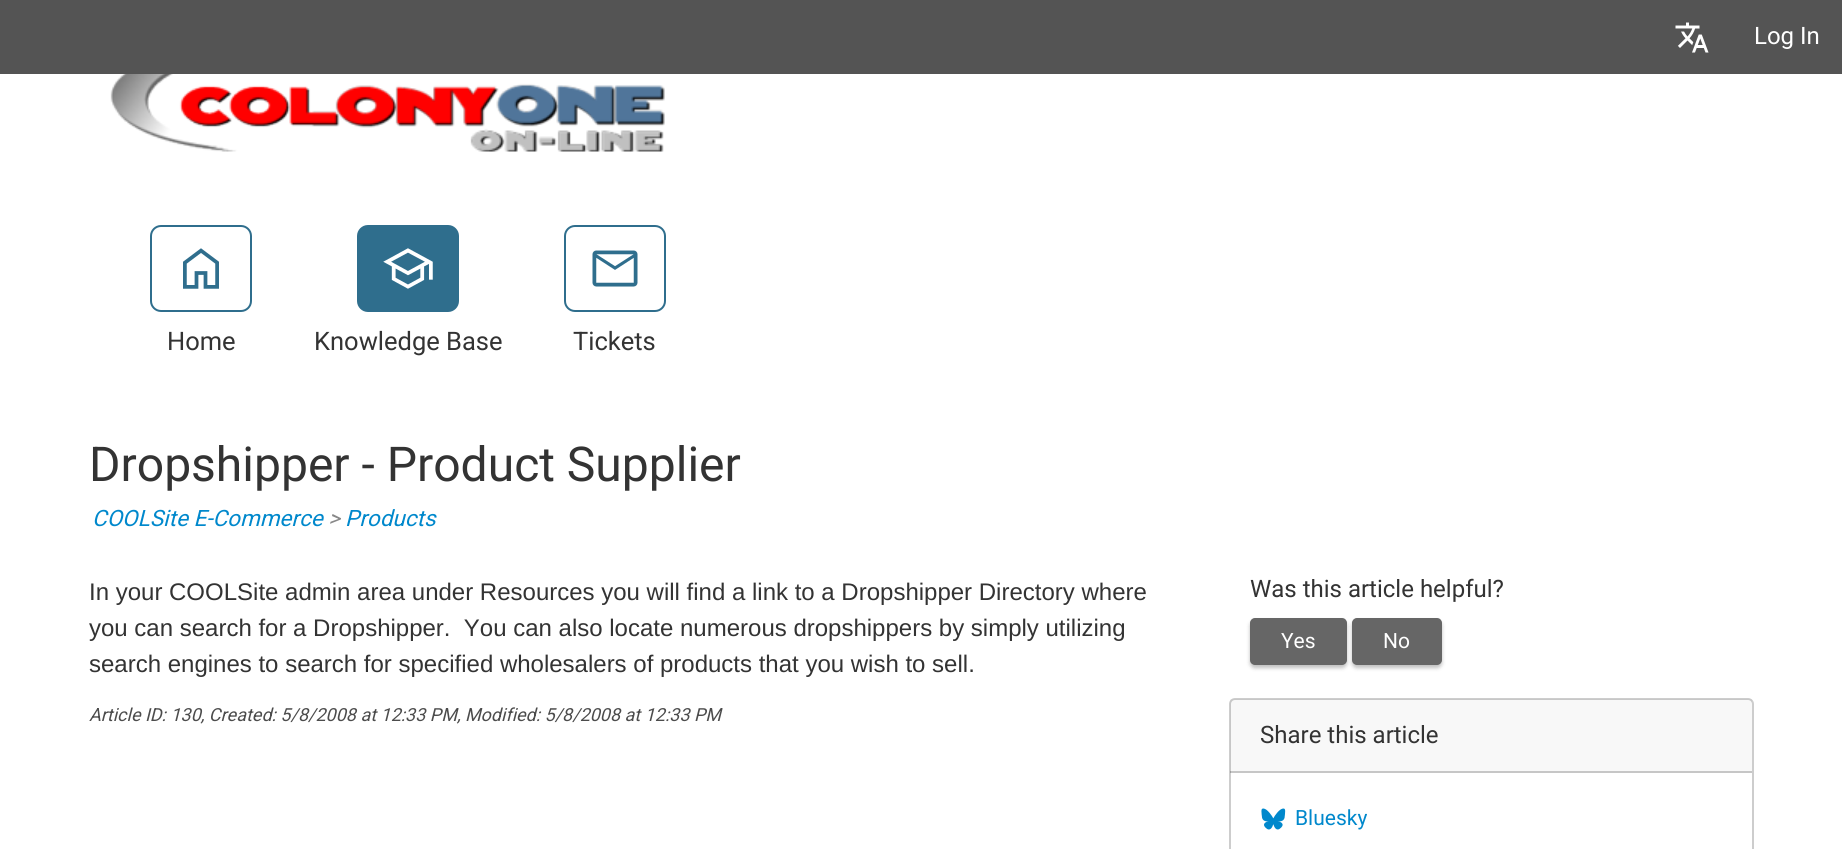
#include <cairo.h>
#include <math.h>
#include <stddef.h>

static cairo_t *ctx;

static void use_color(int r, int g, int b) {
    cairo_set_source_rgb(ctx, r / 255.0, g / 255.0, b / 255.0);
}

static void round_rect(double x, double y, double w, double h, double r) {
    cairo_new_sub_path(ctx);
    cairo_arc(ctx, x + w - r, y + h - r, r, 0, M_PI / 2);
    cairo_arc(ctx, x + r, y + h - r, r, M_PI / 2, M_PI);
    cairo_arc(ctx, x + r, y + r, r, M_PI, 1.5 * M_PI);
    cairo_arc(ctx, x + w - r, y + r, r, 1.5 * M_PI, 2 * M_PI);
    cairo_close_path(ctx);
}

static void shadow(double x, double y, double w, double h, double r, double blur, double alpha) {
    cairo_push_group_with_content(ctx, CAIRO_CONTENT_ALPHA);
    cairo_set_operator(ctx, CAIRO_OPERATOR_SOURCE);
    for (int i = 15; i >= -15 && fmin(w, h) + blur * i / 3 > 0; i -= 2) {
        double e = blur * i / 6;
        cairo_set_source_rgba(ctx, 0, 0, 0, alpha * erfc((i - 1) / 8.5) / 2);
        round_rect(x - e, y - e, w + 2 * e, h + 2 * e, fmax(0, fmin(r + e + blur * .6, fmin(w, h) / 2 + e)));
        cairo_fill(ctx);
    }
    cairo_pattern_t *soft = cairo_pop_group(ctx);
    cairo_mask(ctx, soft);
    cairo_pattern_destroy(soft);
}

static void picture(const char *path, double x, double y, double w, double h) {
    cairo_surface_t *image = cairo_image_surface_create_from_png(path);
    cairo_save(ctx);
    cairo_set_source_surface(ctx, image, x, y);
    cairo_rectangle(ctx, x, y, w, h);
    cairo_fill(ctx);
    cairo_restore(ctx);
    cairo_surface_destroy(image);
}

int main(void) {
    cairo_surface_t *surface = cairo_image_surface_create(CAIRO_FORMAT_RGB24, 1842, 849);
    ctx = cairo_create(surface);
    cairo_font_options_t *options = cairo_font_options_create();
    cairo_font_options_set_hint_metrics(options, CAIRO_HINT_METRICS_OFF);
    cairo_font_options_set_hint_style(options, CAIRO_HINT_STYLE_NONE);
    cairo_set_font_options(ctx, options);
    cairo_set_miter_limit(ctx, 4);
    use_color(255, 255, 255);
    cairo_paint(ctx);
    use_color(84, 84, 84);
    cairo_rectangle(ctx, 0, 0, 1842, 74);
    cairo_fill(ctx);
    picture("img1.png", 1675, 22, 34, 31);
    cairo_select_font_face(ctx, "Roboto", CAIRO_FONT_SLANT_NORMAL, CAIRO_FONT_WEIGHT_NORMAL);
    cairo_set_font_size(ctx, 24);
    use_color(255, 255, 255);
    cairo_move_to(ctx, 1754, 44);
    cairo_show_text(ctx, "Log In");
    picture("img2.png", 110, 74, 555, 78);
    round_rect(151, 226, 100, 85, 10);
    use_color(47, 110, 141);
    cairo_stroke(ctx);
    picture("img3.png", 183, 248, 36, 41);
    cairo_set_font_size(ctx, 25.5);
    use_color(51, 51, 51);
    cairo_move_to(ctx, 167, 350);
    cairo_show_text(ctx, "Home");
    use_color(47, 110, 141);
    round_rect(358, 226, 100, 85, 10);
    cairo_fill_preserve(ctx);
    cairo_stroke(ctx);
    picture("img4.png", 383, 248, 50, 41);
    use_color(51, 51, 51);
    cairo_move_to(ctx, 314, 350);
    cairo_show_text(ctx, "Knowledge Base");
    round_rect(565, 226, 100, 85, 10);
    use_color(47, 110, 141);
    cairo_stroke(ctx);
    picture("img5.png", 592, 250, 46, 37);
    use_color(51, 51, 51);
    cairo_move_to(ctx, 573, 350);
    cairo_show_text(ctx, "Tickets");
    cairo_set_font_size(ctx, 48);
    cairo_move_to(ctx, 89, 481);
    cairo_show_text(ctx, "Dropshipper - Product Supplier");
    cairo_select_font_face(ctx, "Roboto", CAIRO_FONT_SLANT_ITALIC, CAIRO_FONT_WEIGHT_NORMAL);
    cairo_set_font_size(ctx, 22.5);
    use_color(0, 136, 204);
    cairo_move_to(ctx, 92, 526);
    cairo_show_text(ctx, "COOLSite E-Commerce");
    use_color(136, 136, 136);
    cairo_move_to(ctx, 328, 526);
    cairo_show_text(ctx, ">");
    use_color(0, 136, 204);
    cairo_move_to(ctx, 345, 526);
    cairo_show_text(ctx, "Products");
    cairo_select_font_face(ctx, "Liberation Sans", CAIRO_FONT_SLANT_NORMAL, CAIRO_FONT_WEIGHT_NORMAL);
    cairo_set_font_size(ctx, 24);
    use_color(51, 51, 51);
    cairo_move_to(ctx, 89, 600);
    cairo_show_text(ctx, "In your COOLSite admin area under Resources you will find a link to a Dropshipper Directory where");
    cairo_move_to(ctx, 89, 636);
    cairo_show_text(ctx, "you can search for a Dropshipper.  You can also locate numerous dropshippers by simply utilizing");
    cairo_move_to(ctx, 89, 672);
    cairo_show_text(ctx, "search engines to search for specified wholesalers of products that you wish to sell.");
    cairo_select_font_face(ctx, "Roboto", CAIRO_FONT_SLANT_ITALIC, CAIRO_FONT_WEIGHT_NORMAL);
    cairo_set_font_size(ctx, 18);
    use_color(76, 76, 76);
    cairo_move_to(ctx, 89, 721);
    cairo_show_text(ctx, "Article ID: 130, Created: 5/8/2008 at 12:33 PM, Modified: 5/8/2008 at 12:33 PM");
    cairo_select_font_face(ctx, "Roboto", CAIRO_FONT_SLANT_NORMAL, CAIRO_FONT_WEIGHT_NORMAL);
    cairo_set_font_size(ctx, 24);
    use_color(51, 51, 51);
    cairo_move_to(ctx, 1250, 597);
    cairo_show_text(ctx, "Was this article helpful?");
    use_color(0, 0, 0);
    shadow(1250, 621, 97, 47, 5, 2, 0.25);
    use_color(102, 102, 102);
    round_rect(1251, 619, 95, 45, 4);
    cairo_fill_preserve(ctx);
    cairo_stroke(ctx);
    cairo_set_font_size(ctx, 21);
    use_color(255, 255, 255);
    cairo_move_to(ctx, 1281, 648);
    cairo_show_text(ctx, "Yes");
    use_color(0, 0, 0);
    shadow(1352, 621, 90, 47, 5, 2, 0.25);
    use_color(102, 102, 102);
    round_rect(1353, 619, 88, 45, 4);
    cairo_fill_preserve(ctx);
    cairo_stroke(ctx);
    use_color(255, 255, 255);
    cairo_move_to(ctx, 1383, 648);
    cairo_show_text(ctx, "No");
    round_rect(1230, 699, 523, 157, 5);
    use_color(205, 205, 205);
    cairo_stroke(ctx);
    cairo_set_source_rgba(ctx, 0, 0, 0, 0.03);
    cairo_rectangle(ctx, 1230, 699, 522, 74);
    cairo_fill(ctx);
    cairo_set_source_rgba(ctx, 0, 0, 0, 0.2);
    cairo_rectangle(ctx, 1230, 771, 522, 2);
    cairo_fill(ctx);
    cairo_set_font_size(ctx, 24);
    use_color(51, 51, 51);
    cairo_move_to(ctx, 1260, 743);
    cairo_show_text(ctx, "Share this article");
    picture("img6.png", 1261, 808, 25, 22);
    cairo_set_font_size(ctx, 21);
    use_color(0, 136, 204);
    cairo_move_to(ctx, 1295, 825);
    cairo_show_text(ctx, "Bluesky");
    cairo_surface_write_to_png(surface, "result.png");
    cairo_font_options_destroy(options);
    cairo_destroy(ctx);
    cairo_surface_destroy(surface);
    return 0;
}
